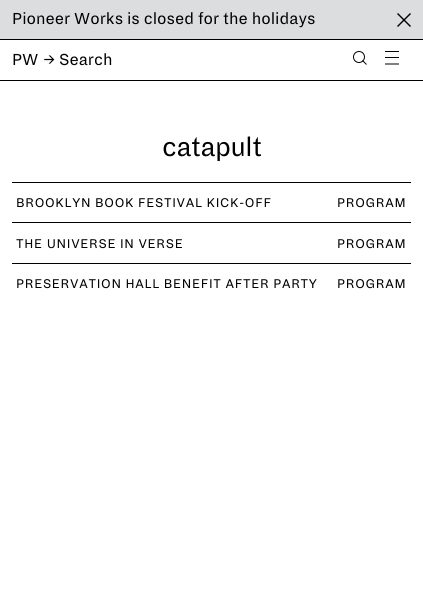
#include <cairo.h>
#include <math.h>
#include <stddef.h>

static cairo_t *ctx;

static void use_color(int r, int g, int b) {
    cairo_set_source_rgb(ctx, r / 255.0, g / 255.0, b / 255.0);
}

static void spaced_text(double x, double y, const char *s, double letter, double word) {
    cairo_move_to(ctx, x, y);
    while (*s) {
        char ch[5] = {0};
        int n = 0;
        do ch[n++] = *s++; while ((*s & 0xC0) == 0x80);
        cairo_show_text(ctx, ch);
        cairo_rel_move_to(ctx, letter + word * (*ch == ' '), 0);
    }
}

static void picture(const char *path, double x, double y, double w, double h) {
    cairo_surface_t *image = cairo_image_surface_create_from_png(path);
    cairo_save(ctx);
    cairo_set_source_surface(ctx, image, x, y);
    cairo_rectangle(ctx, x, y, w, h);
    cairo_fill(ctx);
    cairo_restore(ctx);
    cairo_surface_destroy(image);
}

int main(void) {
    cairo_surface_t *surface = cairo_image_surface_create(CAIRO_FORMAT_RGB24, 423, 607);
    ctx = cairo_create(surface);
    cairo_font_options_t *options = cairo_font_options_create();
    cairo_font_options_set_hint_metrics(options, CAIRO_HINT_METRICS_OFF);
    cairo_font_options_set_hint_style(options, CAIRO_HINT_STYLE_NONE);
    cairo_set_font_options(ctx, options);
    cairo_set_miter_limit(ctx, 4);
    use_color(255, 255, 255);
    cairo_paint(ctx);
    use_color(220, 221, 222);
    cairo_rectangle(ctx, 0, 0, 423, 39);
    cairo_fill(ctx);
    use_color(0, 0, 0);
    cairo_rectangle(ctx, 0, 39, 423, 1);
    cairo_fill(ctx);
    cairo_select_font_face(ctx, "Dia", CAIRO_FONT_SLANT_NORMAL, CAIRO_FONT_WEIGHT_NORMAL);
    cairo_set_font_size(ctx, 17.6);
    cairo_move_to(ctx, 12, 24);
    cairo_show_text(ctx, "Pioneer Works is closed for the holidays");
    cairo_new_path(ctx);
    cairo_move_to(ctx, 397.5, 13.5);
    cairo_line_to(ctx, 410.5, 26.5);
    cairo_move_to(ctx, 410.5, 13.5);
    cairo_line_to(ctx, 397.5, 26.5);
    cairo_set_line_width(ctx, 1.4);
    cairo_stroke(ctx);
    cairo_rectangle(ctx, 0, 80, 423, 1);
    cairo_fill(ctx);
    picture("img1.png", 13, 53, 25, 12);
    cairo_move_to(ctx, 44, 65);
    cairo_show_text(ctx, "→");
    cairo_move_to(ctx, 59, 65);
    cairo_show_text(ctx, "Search");
    cairo_new_path(ctx);
    cairo_arc(ctx, 359, 57, 5.5, 0, 2 * M_PI);
    cairo_set_line_width(ctx, 1);
    cairo_stroke(ctx);
    cairo_new_path(ctx);
    cairo_move_to(ctx, 366.5, 64.5);
    cairo_line_to(ctx, 362.5, 60.5);
    cairo_stroke(ctx);
    cairo_rectangle(ctx, 385, 51, 14, 1);
    cairo_fill(ctx);
    cairo_rectangle(ctx, 385, 57, 14, 1);
    cairo_fill(ctx);
    cairo_new_path(ctx);
    cairo_move_to(ctx, 385, 64);
    cairo_line_to(ctx, 399, 64);
    cairo_stroke(ctx);
    cairo_set_font_size(ctx, 29);
    spaced_text(162, 156, "catapult", -0.5, 0);
    cairo_rectangle(ctx, 12, 182, 399, 1);
    cairo_fill(ctx);
    cairo_set_font_size(ctx, 14);
    spaced_text(16, 207, "BROOKLYN BOOK FESTIVAL KICK-OFF", 0.7, 0);
    spaced_text(337, 207, "PROGRAM", 0.7, 0);
    cairo_rectangle(ctx, 12, 222, 399, 1);
    cairo_fill(ctx);
    spaced_text(16, 248, "THE UNIVERSE IN VERSE", 0.7, 0);
    spaced_text(337, 248, "PROGRAM", 0.7, 0);
    cairo_rectangle(ctx, 12, 263, 399, 1);
    cairo_fill(ctx);
    spaced_text(16, 288, "PRESERVATION HALL BENEFIT AFTER PARTY", 0.7, 0);
    spaced_text(337, 288, "PROGRAM", 0.7, 0);
    cairo_surface_write_to_png(surface, "result.png");
    cairo_font_options_destroy(options);
    cairo_destroy(ctx);
    cairo_surface_destroy(surface);
    return 0;
}
